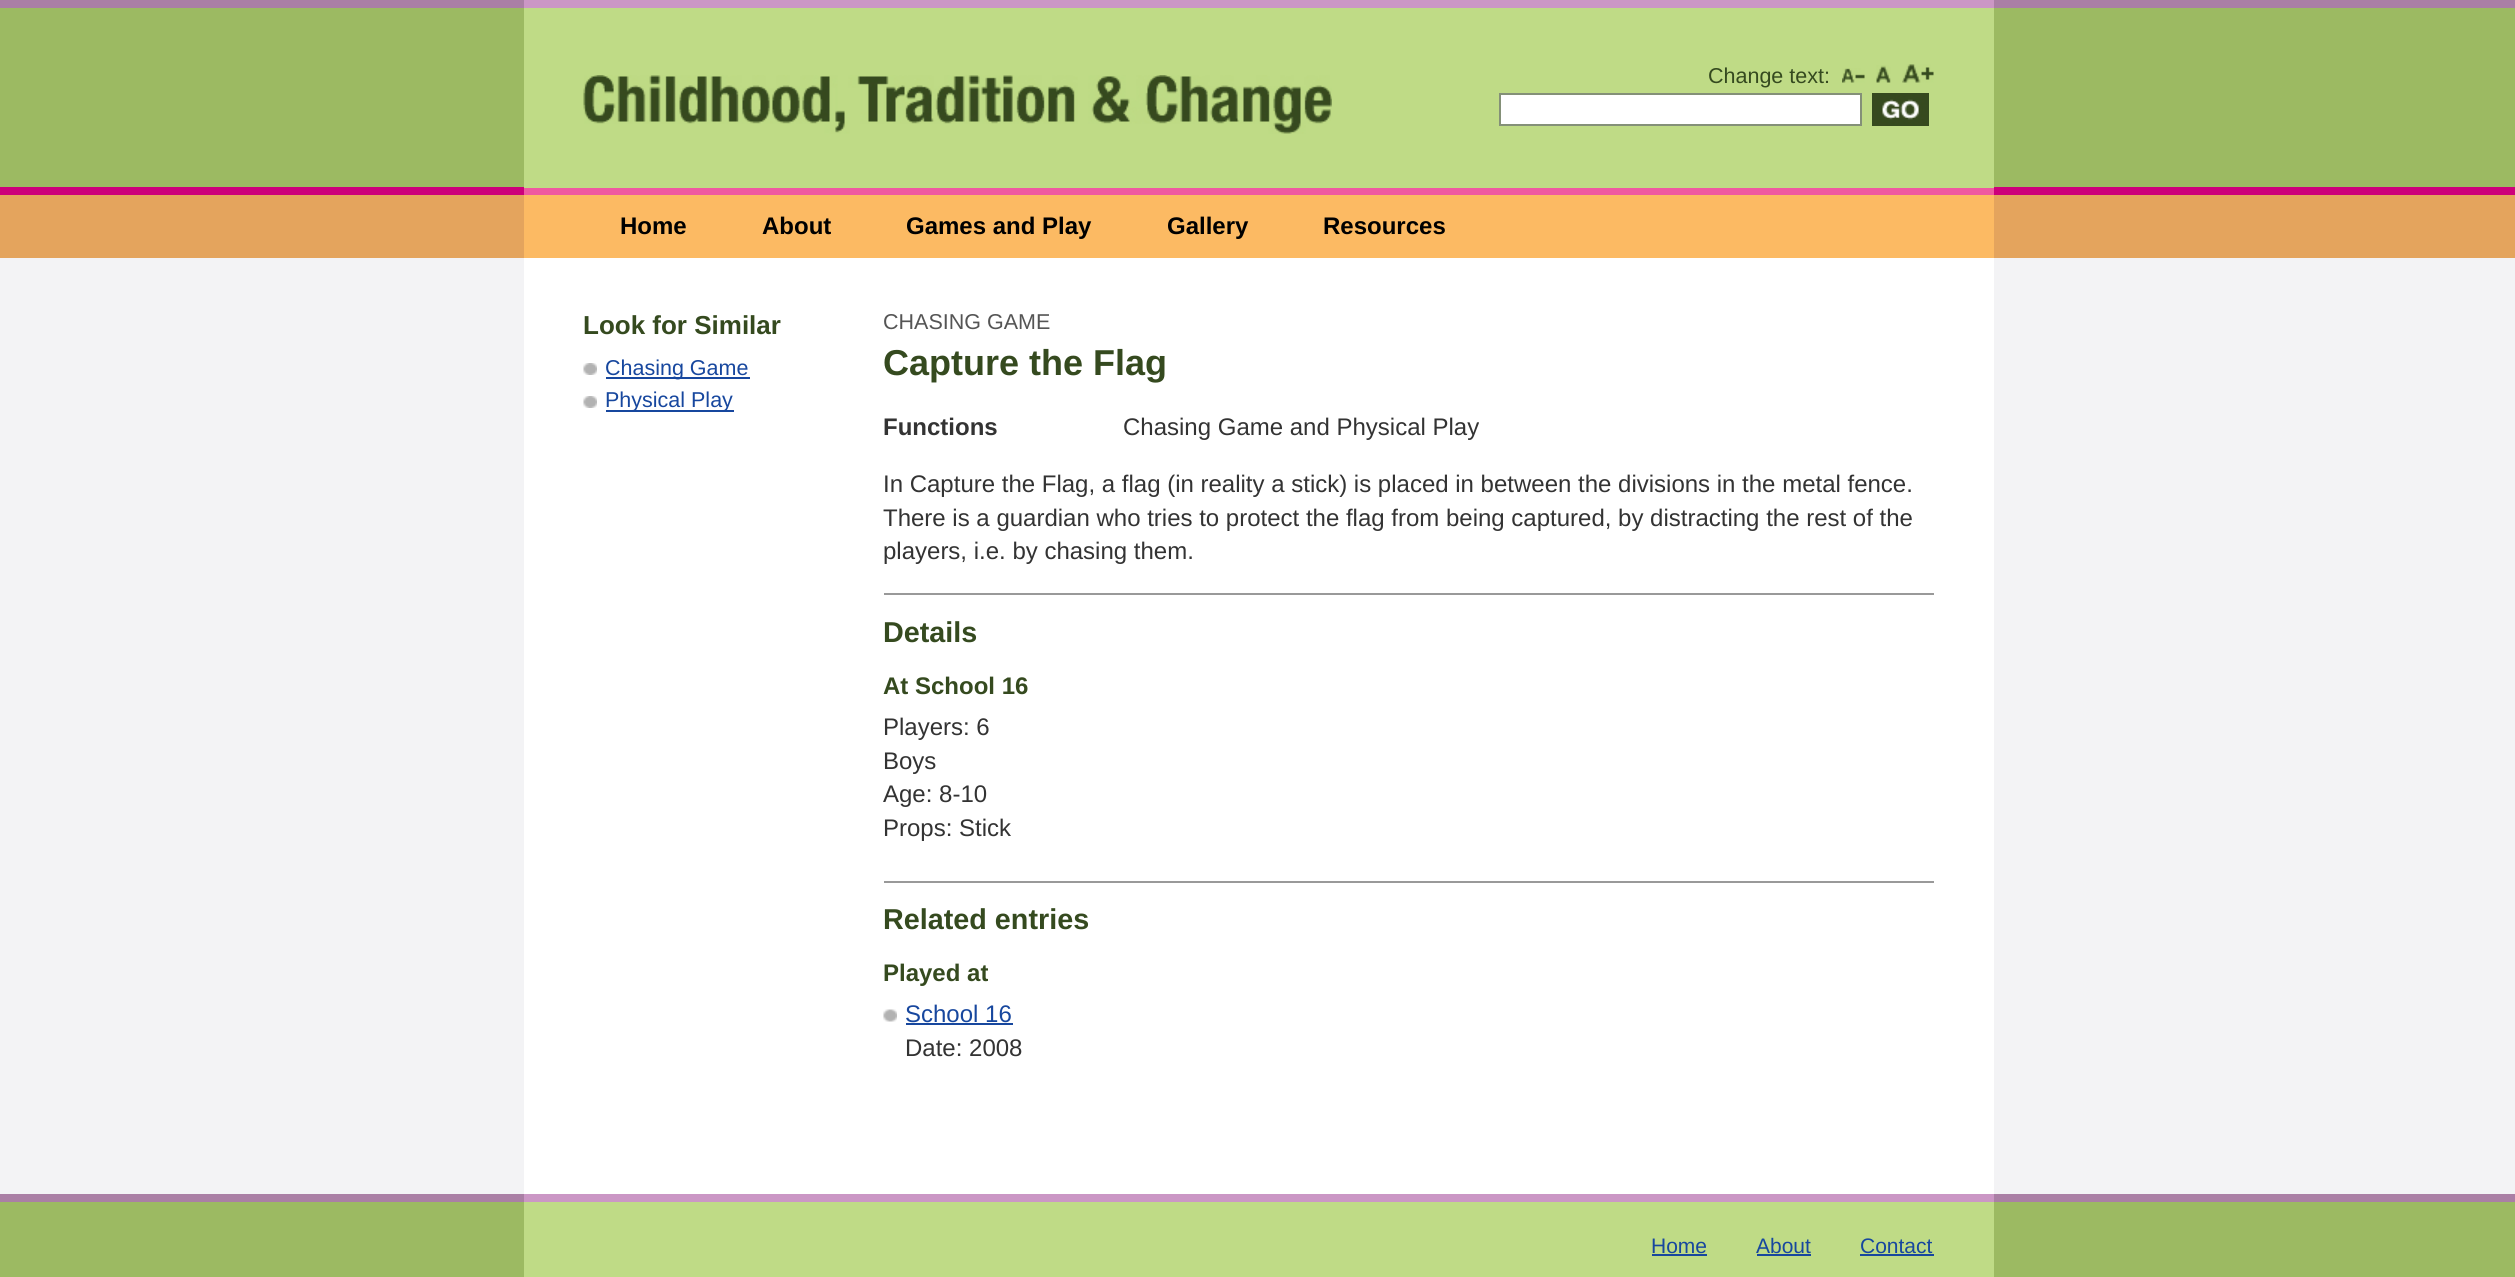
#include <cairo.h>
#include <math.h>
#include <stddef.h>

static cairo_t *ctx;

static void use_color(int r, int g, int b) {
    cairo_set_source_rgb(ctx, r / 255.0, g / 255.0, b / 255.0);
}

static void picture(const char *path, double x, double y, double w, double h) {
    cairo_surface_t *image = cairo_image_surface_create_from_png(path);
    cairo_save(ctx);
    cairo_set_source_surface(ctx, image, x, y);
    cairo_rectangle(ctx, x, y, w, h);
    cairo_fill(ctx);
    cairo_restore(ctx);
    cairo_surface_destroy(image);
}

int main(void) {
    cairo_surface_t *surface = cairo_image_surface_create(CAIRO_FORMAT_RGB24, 2515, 1277);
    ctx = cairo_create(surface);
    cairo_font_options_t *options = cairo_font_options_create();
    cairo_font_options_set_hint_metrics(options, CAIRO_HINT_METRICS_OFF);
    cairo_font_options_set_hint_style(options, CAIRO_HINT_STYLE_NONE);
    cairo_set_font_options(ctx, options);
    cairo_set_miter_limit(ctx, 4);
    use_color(156, 186, 98);
    cairo_paint(ctx);
    use_color(170, 127, 165);
    cairo_rectangle(ctx, 0, 0, 2515, 8);
    cairo_fill(ctx);
    use_color(205, 0, 122);
    cairo_rectangle(ctx, 0, 187, 2515, 8);
    cairo_fill(ctx);
    use_color(191, 219, 134);
    cairo_rectangle(ctx, 524, 8, 1470, 180);
    cairo_fill(ctx);
    use_color(203, 151, 197);
    cairo_rectangle(ctx, 524, 0, 1470, 8);
    cairo_fill(ctx);
    picture("img1.png", 583, 75, 749, 59);
    cairo_select_font_face(ctx, "Liberation Sans", CAIRO_FONT_SLANT_NORMAL, CAIRO_FONT_WEIGHT_NORMAL);
    cairo_set_font_size(ctx, 21.5);
    use_color(53, 74, 31);
    cairo_move_to(ctx, 1708, 83);
    cairo_show_text(ctx, "Change text:");
    picture("img2.png", 1842, 68, 23, 15);
    picture("img3.png", 1876, 65, 15, 18);
    picture("img4.png", 1902, 64, 32, 19);
    use_color(255, 255, 255);
    cairo_rectangle(ctx, 1500, 94, 361, 31);
    cairo_fill_preserve(ctx);
    use_color(132, 144, 120);
    cairo_stroke(ctx);
    picture("img5.png", 1872, 93, 57, 33);
    use_color(228, 164, 93);
    cairo_rectangle(ctx, 0, 195, 2515, 63);
    cairo_fill(ctx);
    use_color(252, 186, 99);
    cairo_rectangle(ctx, 524, 195, 1470, 63);
    cairo_fill(ctx);
    use_color(239, 89, 160);
    cairo_rectangle(ctx, 524, 188, 1470, 7);
    cairo_fill(ctx);
    cairo_select_font_face(ctx, "Liberation Sans", CAIRO_FONT_SLANT_NORMAL, CAIRO_FONT_WEIGHT_BOLD);
    cairo_set_font_size(ctx, 24);
    use_color(0, 0, 0);
    cairo_move_to(ctx, 620, 234);
    cairo_show_text(ctx, "Home");
    cairo_move_to(ctx, 762, 234);
    cairo_show_text(ctx, "About");
    cairo_move_to(ctx, 906, 234);
    cairo_show_text(ctx, "Games and Play");
    cairo_move_to(ctx, 1167, 234);
    cairo_show_text(ctx, "Gallery");
    cairo_move_to(ctx, 1323, 234);
    cairo_show_text(ctx, "Resources");
    use_color(243, 243, 245);
    cairo_rectangle(ctx, 0, 258, 2515, 936);
    cairo_fill(ctx);
    use_color(255, 255, 255);
    cairo_rectangle(ctx, 524, 258, 1470, 936);
    cairo_fill(ctx);
    cairo_set_font_size(ctx, 26);
    use_color(53, 74, 31);
    cairo_move_to(ctx, 583, 334);
    cairo_show_text(ctx, "Look for Similar");
    picture("img6.png", 583, 363, 14, 12);
    use_color(23, 71, 158);
    cairo_rectangle(ctx, 606, 377, 144, 2);
    cairo_fill(ctx);
    cairo_select_font_face(ctx, "Liberation Sans", CAIRO_FONT_SLANT_NORMAL, CAIRO_FONT_WEIGHT_NORMAL);
    cairo_set_font_size(ctx, 21.5);
    cairo_move_to(ctx, 605, 375);
    cairo_show_text(ctx, "Chasing Game");
    picture("img6.png", 583, 396, 14, 12);
    cairo_rectangle(ctx, 606, 410, 128, 2);
    cairo_fill(ctx);
    cairo_move_to(ctx, 605, 407);
    cairo_show_text(ctx, "Physical Play");
    use_color(85, 85, 85);
    cairo_move_to(ctx, 883, 329);
    cairo_show_text(ctx, "CHASING GAME");
    cairo_select_font_face(ctx, "Liberation Sans", CAIRO_FONT_SLANT_NORMAL, CAIRO_FONT_WEIGHT_BOLD);
    cairo_set_font_size(ctx, 36);
    use_color(53, 74, 31);
    cairo_move_to(ctx, 883, 375);
    cairo_show_text(ctx, "Capture the Flag");
    cairo_set_font_size(ctx, 24);
    use_color(51, 51, 51);
    cairo_move_to(ctx, 883, 435);
    cairo_show_text(ctx, "Functions");
    cairo_select_font_face(ctx, "Liberation Sans", CAIRO_FONT_SLANT_NORMAL, CAIRO_FONT_WEIGHT_NORMAL);
    cairo_move_to(ctx, 1123, 435);
    cairo_show_text(ctx, "Chasing Game and Physical Play");
    cairo_move_to(ctx, 883, 492);
    cairo_show_text(ctx, "In Capture the Flag, a flag (in reality a stick) is placed in between the divisions in the metal fence.");
    cairo_move_to(ctx, 883, 526);
    cairo_show_text(ctx, "There is a guardian who tries to protect the flag from being captured, by distracting the rest of the");
    cairo_move_to(ctx, 883, 559);
    cairo_show_text(ctx, "players, i.e. by chasing them.");
    use_color(153, 153, 153);
    cairo_rectangle(ctx, 884, 593, 1050, 2);
    cairo_fill(ctx);
    cairo_select_font_face(ctx, "Liberation Sans", CAIRO_FONT_SLANT_NORMAL, CAIRO_FONT_WEIGHT_BOLD);
    cairo_set_font_size(ctx, 28.75);
    use_color(53, 74, 31);
    cairo_move_to(ctx, 883, 642);
    cairo_show_text(ctx, "Details");
    cairo_set_font_size(ctx, 24);
    cairo_move_to(ctx, 883, 694);
    cairo_show_text(ctx, "At School 16");
    cairo_select_font_face(ctx, "Liberation Sans", CAIRO_FONT_SLANT_NORMAL, CAIRO_FONT_WEIGHT_NORMAL);
    use_color(51, 51, 51);
    cairo_move_to(ctx, 883, 735);
    cairo_show_text(ctx, "Players: 6");
    cairo_move_to(ctx, 883, 769);
    cairo_show_text(ctx, "Boys");
    cairo_move_to(ctx, 883, 802);
    cairo_show_text(ctx, "Age: 8-10");
    cairo_move_to(ctx, 883, 836);
    cairo_show_text(ctx, "Props: Stick");
    use_color(153, 153, 153);
    cairo_rectangle(ctx, 884, 881, 1050, 2);
    cairo_fill(ctx);
    cairo_select_font_face(ctx, "Liberation Sans", CAIRO_FONT_SLANT_NORMAL, CAIRO_FONT_WEIGHT_BOLD);
    cairo_set_font_size(ctx, 28.75);
    use_color(53, 74, 31);
    cairo_move_to(ctx, 883, 929);
    cairo_show_text(ctx, "Related entries");
    cairo_set_font_size(ctx, 24);
    cairo_move_to(ctx, 883, 981);
    cairo_show_text(ctx, "Played at");
    picture("img7.png", 883, 1009, 14, 13);
    cairo_select_font_face(ctx, "Liberation Sans", CAIRO_FONT_SLANT_NORMAL, CAIRO_FONT_WEIGHT_NORMAL);
    use_color(23, 71, 158);
    cairo_move_to(ctx, 905, 1022);
    cairo_show_text(ctx, "School 16");
    cairo_rectangle(ctx, 906, 1023, 107, 2);
    cairo_fill(ctx);
    use_color(51, 51, 51);
    cairo_move_to(ctx, 905, 1056);
    cairo_show_text(ctx, "Date: 2008");
    use_color(170, 127, 165);
    cairo_rectangle(ctx, 0, 1194, 2515, 8);
    cairo_fill(ctx);
    use_color(191, 219, 134);
    cairo_rectangle(ctx, 524, 1202, 1470, 75);
    cairo_fill(ctx);
    use_color(203, 151, 197);
    cairo_rectangle(ctx, 524, 1194, 1470, 8);
    cairo_fill(ctx);
    cairo_set_font_size(ctx, 21);
    use_color(23, 71, 158);
    cairo_move_to(ctx, 1651, 1253);
    cairo_show_text(ctx, "Home");
    cairo_rectangle(ctx, 1652, 1254, 55, 2);
    cairo_fill(ctx);
    cairo_move_to(ctx, 1756, 1253);
    cairo_show_text(ctx, "About");
    cairo_rectangle(ctx, 1757, 1254, 54, 2);
    cairo_fill(ctx);
    cairo_move_to(ctx, 1860, 1253);
    cairo_show_text(ctx, "Contact");
    cairo_rectangle(ctx, 1860, 1254, 74, 2);
    cairo_fill(ctx);
    cairo_surface_write_to_png(surface, "result.png");
    cairo_font_options_destroy(options);
    cairo_destroy(ctx);
    cairo_surface_destroy(surface);
    return 0;
}
